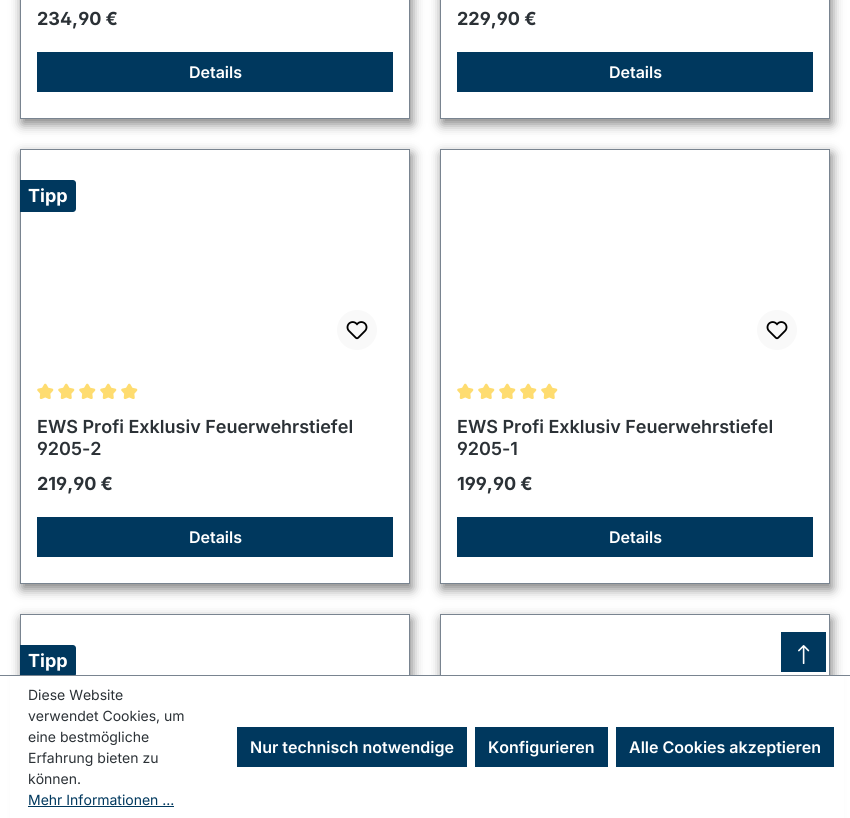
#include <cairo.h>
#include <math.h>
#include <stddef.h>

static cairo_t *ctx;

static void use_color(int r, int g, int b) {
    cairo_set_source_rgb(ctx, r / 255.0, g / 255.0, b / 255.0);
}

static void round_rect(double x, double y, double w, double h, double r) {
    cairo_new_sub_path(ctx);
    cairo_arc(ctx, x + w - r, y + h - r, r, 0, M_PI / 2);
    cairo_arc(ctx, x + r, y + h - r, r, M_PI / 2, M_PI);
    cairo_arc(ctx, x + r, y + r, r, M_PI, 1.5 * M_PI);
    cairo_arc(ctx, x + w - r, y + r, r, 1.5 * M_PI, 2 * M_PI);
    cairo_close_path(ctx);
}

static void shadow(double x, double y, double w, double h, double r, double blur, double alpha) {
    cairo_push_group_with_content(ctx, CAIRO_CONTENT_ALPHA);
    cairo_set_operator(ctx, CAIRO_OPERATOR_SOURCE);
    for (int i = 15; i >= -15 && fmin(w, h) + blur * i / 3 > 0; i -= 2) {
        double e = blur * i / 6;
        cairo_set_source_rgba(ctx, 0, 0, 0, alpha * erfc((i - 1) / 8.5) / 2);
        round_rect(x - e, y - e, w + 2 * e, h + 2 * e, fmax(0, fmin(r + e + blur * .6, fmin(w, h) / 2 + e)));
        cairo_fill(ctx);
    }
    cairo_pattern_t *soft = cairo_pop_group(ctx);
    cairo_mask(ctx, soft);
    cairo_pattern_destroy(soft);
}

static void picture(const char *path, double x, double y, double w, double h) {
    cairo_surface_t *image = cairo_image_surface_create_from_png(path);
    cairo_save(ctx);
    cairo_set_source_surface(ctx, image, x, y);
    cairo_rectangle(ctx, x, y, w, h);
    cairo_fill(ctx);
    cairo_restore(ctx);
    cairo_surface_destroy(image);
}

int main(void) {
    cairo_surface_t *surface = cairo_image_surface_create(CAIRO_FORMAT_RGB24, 850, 818);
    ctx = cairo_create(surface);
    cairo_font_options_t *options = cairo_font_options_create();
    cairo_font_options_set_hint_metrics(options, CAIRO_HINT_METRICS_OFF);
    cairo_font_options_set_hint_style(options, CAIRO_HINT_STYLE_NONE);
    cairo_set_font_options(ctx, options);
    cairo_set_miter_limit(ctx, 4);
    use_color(255, 255, 255);
    cairo_paint(ctx);
    cairo_save(ctx);
    cairo_set_fill_rule(ctx, CAIRO_FILL_RULE_EVEN_ODD);
    cairo_new_path(ctx);
    cairo_move_to(ctx, 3, 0);
    cairo_line_to(ctx, 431, 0);
    cairo_line_to(ctx, 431, 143);
    cairo_line_to(ctx, 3, 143);
    cairo_close_path(ctx);
    cairo_move_to(ctx, 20, -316);
    cairo_line_to(ctx, 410, -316);
    cairo_line_to(ctx, 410, 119);
    cairo_line_to(ctx, 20, 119);
    cairo_close_path(ctx);
    cairo_clip(ctx);
    use_color(128, 128, 128);
    shadow(22, -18, 390, 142, 0, 6, 1);
    cairo_restore(ctx);
    cairo_rectangle(ctx, 20.5, -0.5, 389, 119);
    use_color(121, 132, 144);
    cairo_set_line_width(ctx, 1);
    cairo_stroke(ctx);
    cairo_select_font_face(ctx, "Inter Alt", CAIRO_FONT_SLANT_NORMAL, CAIRO_FONT_WEIGHT_BOLD);
    cairo_set_font_size(ctx, 18);
    use_color(43, 49, 54);
    cairo_move_to(ctx, 37, 25);
    cairo_show_text(ctx, "234,90 €");
    use_color(0, 56, 94);
    cairo_rectangle(ctx, 37, 52, 356, 40);
    cairo_fill(ctx);
    cairo_select_font_face(ctx, "Inter SemiBold", CAIRO_FONT_SLANT_NORMAL, CAIRO_FONT_WEIGHT_NORMAL);
    cairo_set_font_size(ctx, 16);
    use_color(255, 255, 255);
    cairo_move_to(ctx, 189, 78);
    cairo_show_text(ctx, "Details");
    cairo_save(ctx);
    cairo_set_fill_rule(ctx, CAIRO_FILL_RULE_EVEN_ODD);
    cairo_new_path(ctx);
    cairo_move_to(ctx, 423, 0);
    cairo_line_to(ctx, 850, 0);
    cairo_line_to(ctx, 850, 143);
    cairo_line_to(ctx, 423, 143);
    cairo_close_path(ctx);
    cairo_move_to(ctx, 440, -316);
    cairo_line_to(ctx, 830, -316);
    cairo_line_to(ctx, 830, 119);
    cairo_line_to(ctx, 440, 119);
    cairo_close_path(ctx);
    cairo_clip(ctx);
    use_color(128, 128, 128);
    shadow(442, -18, 390, 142, 0, 6, 1);
    cairo_restore(ctx);
    cairo_rectangle(ctx, 440.5, -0.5, 389, 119);
    use_color(121, 132, 144);
    cairo_stroke(ctx);
    cairo_select_font_face(ctx, "Inter Alt", CAIRO_FONT_SLANT_NORMAL, CAIRO_FONT_WEIGHT_BOLD);
    cairo_set_font_size(ctx, 18);
    use_color(43, 49, 54);
    cairo_move_to(ctx, 457, 25);
    cairo_show_text(ctx, "229,90 €");
    use_color(0, 56, 94);
    cairo_rectangle(ctx, 457, 52, 356, 40);
    cairo_fill(ctx);
    cairo_select_font_face(ctx, "Inter SemiBold", CAIRO_FONT_SLANT_NORMAL, CAIRO_FONT_WEIGHT_NORMAL);
    cairo_set_font_size(ctx, 16);
    use_color(255, 255, 255);
    cairo_move_to(ctx, 609, 78);
    cairo_show_text(ctx, "Details");
    cairo_save(ctx);
    cairo_set_fill_rule(ctx, CAIRO_FILL_RULE_EVEN_ODD);
    cairo_new_path(ctx);
    cairo_move_to(ctx, 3, 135);
    cairo_line_to(ctx, 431, 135);
    cairo_line_to(ctx, 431, 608);
    cairo_line_to(ctx, 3, 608);
    cairo_close_path(ctx);
    cairo_move_to(ctx, 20, 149);
    cairo_line_to(ctx, 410, 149);
    cairo_line_to(ctx, 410, 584);
    cairo_line_to(ctx, 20, 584);
    cairo_close_path(ctx);
    cairo_clip(ctx);
    use_color(128, 128, 128);
    shadow(22, 154, 390, 435, 0, 6, 1);
    cairo_restore(ctx);
    cairo_rectangle(ctx, 20.5, 149.5, 389, 434);
    use_color(121, 132, 144);
    cairo_stroke(ctx);
    use_color(0, 56, 94);
    cairo_new_path(ctx);
    cairo_move_to(ctx, 20, 180);
    cairo_line_to(ctx, 73, 180);
    cairo_curve_to(ctx, 74.5, 180, 76, 181.5, 76, 183);
    cairo_line_to(ctx, 76, 209);
    cairo_curve_to(ctx, 76, 210.5, 74.5, 212, 73, 212);
    cairo_line_to(ctx, 20, 212);
    cairo_close_path(ctx);
    cairo_fill(ctx);
    cairo_select_font_face(ctx, "Inter", CAIRO_FONT_SLANT_NORMAL, CAIRO_FONT_WEIGHT_BOLD);
    cairo_set_font_size(ctx, 18);
    use_color(255, 255, 255);
    cairo_move_to(ctx, 28, 202);
    cairo_show_text(ctx, "Tipp");
    use_color(249, 249, 249);
    cairo_new_path(ctx);
    cairo_arc(ctx, 357, 330, 20, 0, 2 * M_PI);
    cairo_fill(ctx);
    picture("img1.png", 346, 321, 22, 19);
    picture("img2.png", 37, 383, 17, 16);
    picture("img2.png", 58, 383, 17, 16);
    picture("img2.png", 79, 383, 17, 16);
    picture("img2.png", 100, 383, 17, 16);
    picture("img2.png", 121, 383, 17, 16);
    cairo_select_font_face(ctx, "Inter SemiBold", CAIRO_FONT_SLANT_NORMAL, CAIRO_FONT_WEIGHT_NORMAL);
    use_color(43, 49, 54);
    cairo_move_to(ctx, 37, 433);
    cairo_show_text(ctx, "EWS Profi Exklusiv Feuerwehrstiefel");
    cairo_select_font_face(ctx, "Inter Alt SemiBold", CAIRO_FONT_SLANT_NORMAL, CAIRO_FONT_WEIGHT_NORMAL);
    cairo_move_to(ctx, 37, 455);
    cairo_show_text(ctx, "9205-2");
    cairo_select_font_face(ctx, "Inter Alt", CAIRO_FONT_SLANT_NORMAL, CAIRO_FONT_WEIGHT_BOLD);
    cairo_move_to(ctx, 37, 490);
    cairo_show_text(ctx, "219,90 €");
    use_color(0, 56, 94);
    cairo_rectangle(ctx, 37, 517, 356, 40);
    cairo_fill(ctx);
    cairo_select_font_face(ctx, "Inter SemiBold", CAIRO_FONT_SLANT_NORMAL, CAIRO_FONT_WEIGHT_NORMAL);
    cairo_set_font_size(ctx, 16);
    use_color(255, 255, 255);
    cairo_move_to(ctx, 189, 543);
    cairo_show_text(ctx, "Details");
    cairo_save(ctx);
    cairo_set_fill_rule(ctx, CAIRO_FILL_RULE_EVEN_ODD);
    cairo_new_path(ctx);
    cairo_move_to(ctx, 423, 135);
    cairo_line_to(ctx, 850, 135);
    cairo_line_to(ctx, 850, 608);
    cairo_line_to(ctx, 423, 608);
    cairo_close_path(ctx);
    cairo_move_to(ctx, 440, 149);
    cairo_line_to(ctx, 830, 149);
    cairo_line_to(ctx, 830, 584);
    cairo_line_to(ctx, 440, 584);
    cairo_close_path(ctx);
    cairo_clip(ctx);
    use_color(128, 128, 128);
    shadow(442, 154, 390, 435, 0, 6, 1);
    cairo_restore(ctx);
    cairo_rectangle(ctx, 440.5, 149.5, 389, 434);
    use_color(121, 132, 144);
    cairo_stroke(ctx);
    use_color(249, 249, 249);
    cairo_arc(ctx, 777, 330, 20, 0, 2 * M_PI);
    cairo_fill(ctx);
    picture("img1.png", 766, 321, 22, 19);
    picture("img2.png", 457, 383, 17, 16);
    picture("img2.png", 478, 383, 17, 16);
    picture("img2.png", 499, 383, 17, 16);
    picture("img2.png", 520, 383, 17, 16);
    picture("img2.png", 541, 383, 17, 16);
    cairo_set_font_size(ctx, 18);
    use_color(43, 49, 54);
    cairo_move_to(ctx, 457, 433);
    cairo_show_text(ctx, "EWS Profi Exklusiv Feuerwehrstiefel");
    cairo_select_font_face(ctx, "Inter Alt SemiBold", CAIRO_FONT_SLANT_NORMAL, CAIRO_FONT_WEIGHT_NORMAL);
    cairo_move_to(ctx, 457, 455);
    cairo_show_text(ctx, "9205-1");
    cairo_select_font_face(ctx, "Inter Alt", CAIRO_FONT_SLANT_NORMAL, CAIRO_FONT_WEIGHT_BOLD);
    cairo_move_to(ctx, 457, 490);
    cairo_show_text(ctx, "199,90 €");
    use_color(0, 56, 94);
    cairo_rectangle(ctx, 457, 517, 356, 40);
    cairo_fill(ctx);
    cairo_select_font_face(ctx, "Inter SemiBold", CAIRO_FONT_SLANT_NORMAL, CAIRO_FONT_WEIGHT_NORMAL);
    cairo_set_font_size(ctx, 16);
    use_color(255, 255, 255);
    cairo_move_to(ctx, 609, 543);
    cairo_show_text(ctx, "Details");
    cairo_save(ctx);
    cairo_set_fill_rule(ctx, CAIRO_FILL_RULE_EVEN_ODD);
    cairo_new_path(ctx);
    cairo_move_to(ctx, 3, 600);
    cairo_line_to(ctx, 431, 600);
    cairo_line_to(ctx, 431, 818);
    cairo_line_to(ctx, 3, 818);
    cairo_close_path(ctx);
    cairo_move_to(ctx, 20, 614);
    cairo_line_to(ctx, 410, 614);
    cairo_line_to(ctx, 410, 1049);
    cairo_line_to(ctx, 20, 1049);
    cairo_close_path(ctx);
    cairo_clip(ctx);
    use_color(128, 128, 128);
    shadow(22, 619, 390, 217, 0, 6, 1);
    cairo_restore(ctx);
    cairo_rectangle(ctx, 20.5, 614.5, 389, 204);
    use_color(121, 132, 144);
    cairo_stroke(ctx);
    use_color(0, 56, 94);
    cairo_new_path(ctx);
    cairo_move_to(ctx, 20, 645);
    cairo_line_to(ctx, 73, 645);
    cairo_curve_to(ctx, 74.5, 645, 76, 646.5, 76, 648);
    cairo_line_to(ctx, 76, 674);
    cairo_curve_to(ctx, 76, 675.5, 74.5, 677, 73, 677);
    cairo_line_to(ctx, 20, 677);
    cairo_close_path(ctx);
    cairo_fill(ctx);
    cairo_select_font_face(ctx, "Inter", CAIRO_FONT_SLANT_NORMAL, CAIRO_FONT_WEIGHT_BOLD);
    cairo_set_font_size(ctx, 18);
    use_color(255, 255, 255);
    cairo_move_to(ctx, 28, 667);
    cairo_show_text(ctx, "Tipp");
    cairo_save(ctx);
    cairo_set_fill_rule(ctx, CAIRO_FILL_RULE_EVEN_ODD);
    cairo_new_path(ctx);
    cairo_move_to(ctx, 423, 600);
    cairo_line_to(ctx, 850, 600);
    cairo_line_to(ctx, 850, 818);
    cairo_line_to(ctx, 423, 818);
    cairo_close_path(ctx);
    cairo_move_to(ctx, 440, 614);
    cairo_line_to(ctx, 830, 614);
    cairo_line_to(ctx, 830, 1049);
    cairo_line_to(ctx, 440, 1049);
    cairo_close_path(ctx);
    cairo_clip(ctx);
    use_color(128, 128, 128);
    shadow(442, 619, 390, 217, 0, 6, 1);
    cairo_restore(ctx);
    cairo_rectangle(ctx, 440.5, 614.5, 389, 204);
    use_color(121, 132, 144);
    cairo_stroke(ctx);
    use_color(0, 56, 94);
    cairo_rectangle(ctx, 781, 632, 45, 40);
    cairo_fill(ctx);
    picture("img3.png", 798, 645, 12, 19);
    use_color(255, 255, 255);
    cairo_rectangle(ctx, 10, 676, 834, 142);
    cairo_fill(ctx);
    use_color(121, 132, 144);
    cairo_rectangle(ctx, 0, 675, 850, 1);
    cairo_fill(ctx);
    cairo_select_font_face(ctx, "Inter", CAIRO_FONT_SLANT_NORMAL, CAIRO_FONT_WEIGHT_NORMAL);
    cairo_set_font_size(ctx, 14);
    use_color(43, 49, 54);
    cairo_move_to(ctx, 28, 700);
    cairo_show_text(ctx, "Diese Website");
    cairo_move_to(ctx, 28, 721);
    cairo_show_text(ctx, "verwendet Cookies, um");
    cairo_move_to(ctx, 28, 742);
    cairo_show_text(ctx, "eine bestmögliche");
    cairo_move_to(ctx, 28, 763);
    cairo_show_text(ctx, "Erfahrung bieten zu");
    cairo_move_to(ctx, 28, 784);
    cairo_show_text(ctx, "können.");
    use_color(0, 56, 94);
    cairo_move_to(ctx, 28, 805);
    cairo_show_text(ctx, "Mehr Informationen ...");
    cairo_rectangle(ctx, 28, 806, 146, 1);
    cairo_fill(ctx);
    cairo_rectangle(ctx, 237, 727, 230, 40);
    cairo_fill(ctx);
    cairo_select_font_face(ctx, "Inter SemiBold", CAIRO_FONT_SLANT_NORMAL, CAIRO_FONT_WEIGHT_NORMAL);
    cairo_set_font_size(ctx, 16);
    use_color(255, 255, 255);
    cairo_move_to(ctx, 250, 753);
    cairo_show_text(ctx, "Nur technisch notwendige");
    use_color(0, 56, 94);
    cairo_rectangle(ctx, 475, 727, 133, 40);
    cairo_fill(ctx);
    use_color(255, 255, 255);
    cairo_move_to(ctx, 488, 753);
    cairo_show_text(ctx, "Konfigurieren");
    use_color(0, 56, 94);
    cairo_rectangle(ctx, 616, 727, 218, 40);
    cairo_fill(ctx);
    use_color(255, 255, 255);
    cairo_move_to(ctx, 629, 753);
    cairo_show_text(ctx, "Alle Cookies akzeptieren");
    cairo_surface_write_to_png(surface, "result.png");
    cairo_font_options_destroy(options);
    cairo_destroy(ctx);
    cairo_surface_destroy(surface);
    return 0;
}
